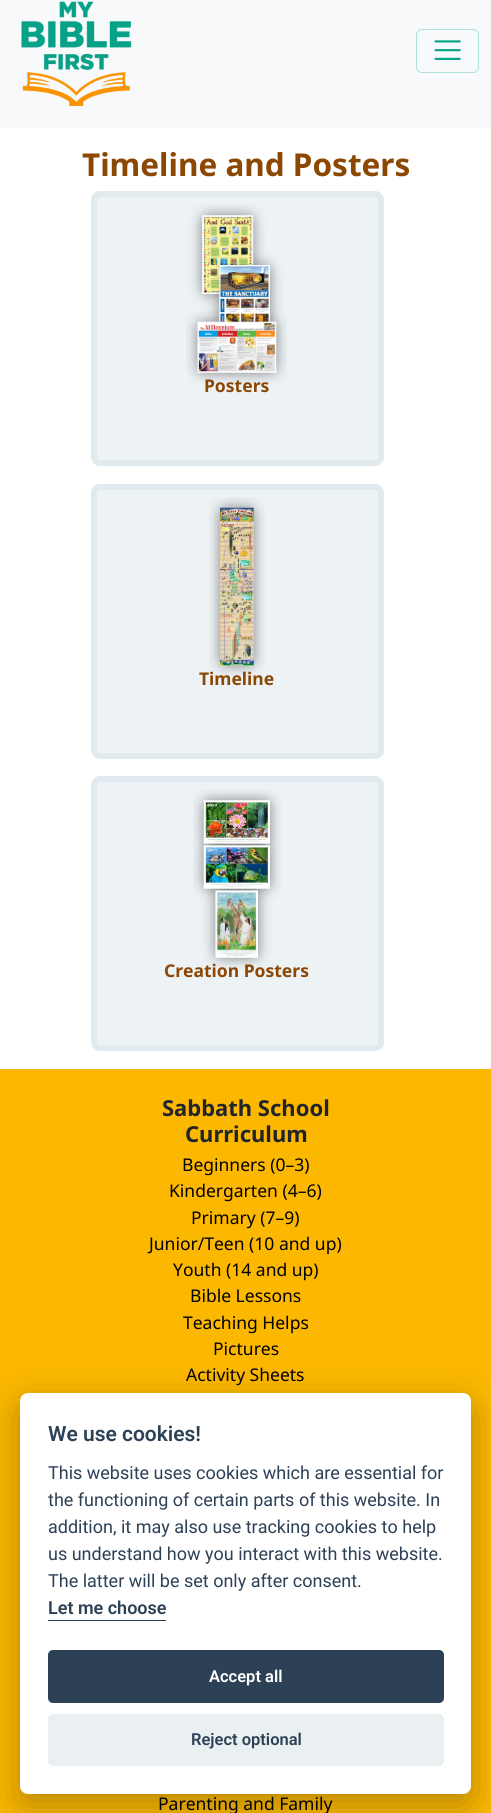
#include <cairo.h>
#include <math.h>
#include <stddef.h>

static cairo_t *ctx;

static void use_color(int r, int g, int b) {
    cairo_set_source_rgb(ctx, r / 255.0, g / 255.0, b / 255.0);
}

static void round_rect(double x, double y, double w, double h, double r) {
    cairo_new_sub_path(ctx);
    cairo_arc(ctx, x + w - r, y + h - r, r, 0, M_PI / 2);
    cairo_arc(ctx, x + r, y + h - r, r, M_PI / 2, M_PI);
    cairo_arc(ctx, x + r, y + r, r, M_PI, 1.5 * M_PI);
    cairo_arc(ctx, x + w - r, y + r, r, 1.5 * M_PI, 2 * M_PI);
    cairo_close_path(ctx);
}

static void shadow(double x, double y, double w, double h, double r, double blur, double alpha) {
    cairo_push_group_with_content(ctx, CAIRO_CONTENT_ALPHA);
    cairo_set_operator(ctx, CAIRO_OPERATOR_SOURCE);
    for (int i = 15; i >= -15 && fmin(w, h) + blur * i / 3 > 0; i -= 2) {
        double e = blur * i / 6;
        cairo_set_source_rgba(ctx, 0, 0, 0, alpha * erfc((i - 1) / 8.5) / 2);
        round_rect(x - e, y - e, w + 2 * e, h + 2 * e, fmax(0, fmin(r + e + blur * .6, fmin(w, h) / 2 + e)));
        cairo_fill(ctx);
    }
    cairo_pattern_t *soft = cairo_pop_group(ctx);
    cairo_mask(ctx, soft);
    cairo_pattern_destroy(soft);
}

static void picture(const char *path, double x, double y, double w, double h) {
    cairo_surface_t *image = cairo_image_surface_create_from_png(path);
    cairo_save(ctx);
    cairo_set_source_surface(ctx, image, x, y);
    cairo_rectangle(ctx, x, y, w, h);
    cairo_fill(ctx);
    cairo_restore(ctx);
    cairo_surface_destroy(image);
}

int main(void) {
    cairo_surface_t *surface = cairo_image_surface_create(CAIRO_FORMAT_RGB24, 491, 1813);
    ctx = cairo_create(surface);
    cairo_font_options_t *options = cairo_font_options_create();
    cairo_font_options_set_hint_metrics(options, CAIRO_HINT_METRICS_OFF);
    cairo_font_options_set_hint_style(options, CAIRO_HINT_STYLE_NONE);
    cairo_set_font_options(ctx, options);
    cairo_set_miter_limit(ctx, 4);
    use_color(255, 255, 255);
    cairo_paint(ctx);
    use_color(248, 249, 250);
    cairo_rectangle(ctx, 0, 0, 491, 128);
    cairo_fill(ctx);
    picture("img1.png", 21, 1, 111, 105);
    round_rect(416.5, 29.5, 62, 43, 5.5);
    use_color(175, 224, 216);
    cairo_set_line_width(ctx, 1);
    cairo_stroke(ctx);
    picture("img2.png", 434, 40, 27, 20);
    cairo_select_font_face(ctx, "Noto Sans", CAIRO_FONT_SLANT_NORMAL, CAIRO_FONT_WEIGHT_BOLD);
    cairo_set_font_size(ctx, 31.5);
    use_color(140, 71, 3);
    cairo_move_to(ctx, 82, 176);
    cairo_show_text(ctx, "Timeline and Posters");
    use_color(237, 242, 245);
    round_rect(94, 194, 287, 269, 6);
    cairo_fill_preserve(ctx);
    use_color(225, 234, 239);
    cairo_set_line_width(ctx, 6);
    cairo_stroke(ctx);
    cairo_set_font_size(ctx, 17.5);
    use_color(140, 71, 3);
    cairo_move_to(ctx, 204, 392);
    cairo_show_text(ctx, "Posters");
    picture("img3.png", 186, 204, 101, 180);
    use_color(237, 242, 245);
    round_rect(94, 487, 287, 269, 6);
    cairo_fill_preserve(ctx);
    use_color(225, 234, 239);
    cairo_stroke(ctx);
    use_color(140, 71, 3);
    cairo_move_to(ctx, 199, 685);
    cairo_show_text(ctx, "Timeline");
    picture("img4.png", 209, 497, 56, 179);
    use_color(237, 242, 245);
    round_rect(94, 779, 287, 269, 6);
    cairo_fill_preserve(ctx);
    use_color(225, 234, 239);
    cairo_stroke(ctx);
    use_color(140, 71, 3);
    cairo_move_to(ctx, 164, 977);
    cairo_show_text(ctx, "Creation Posters");
    picture("img5.png", 193, 789, 88, 180);
    use_color(252, 184, 0);
    cairo_rectangle(ctx, 0, 1069, 491, 744);
    cairo_fill(ctx);
    cairo_set_font_size(ctx, 22);
    use_color(33, 37, 41);
    cairo_move_to(ctx, 162, 1116);
    cairo_show_text(ctx, "Sabbath School");
    cairo_move_to(ctx, 185, 1142);
    cairo_show_text(ctx, "Curriculum");
    cairo_select_font_face(ctx, "Noto Sans", CAIRO_FONT_SLANT_NORMAL, CAIRO_FONT_WEIGHT_NORMAL);
    cairo_set_font_size(ctx, 17.5);
    use_color(0, 0, 0);
    cairo_move_to(ctx, 182, 1171);
    cairo_show_text(ctx, "Beginners (0–3)");
    cairo_move_to(ctx, 169, 1197);
    cairo_show_text(ctx, "Kindergarten (4–6)");
    cairo_move_to(ctx, 191, 1224);
    cairo_show_text(ctx, "Primary (7–9)");
    cairo_move_to(ctx, 149, 1250);
    cairo_show_text(ctx, "Junior/Teen (10 and up)");
    cairo_move_to(ctx, 173, 1276);
    cairo_show_text(ctx, "Youth (14 and up)");
    cairo_move_to(ctx, 190, 1302);
    cairo_show_text(ctx, "Bible Lessons");
    cairo_move_to(ctx, 183, 1329);
    cairo_show_text(ctx, "Teaching Helps");
    cairo_move_to(ctx, 213, 1355);
    cairo_show_text(ctx, "Pictures");
    cairo_move_to(ctx, 186, 1381);
    cairo_show_text(ctx, "Activity Sheets");
    cairo_move_to(ctx, 158, 1810);
    cairo_show_text(ctx, "Parenting and Family");
    use_color(2, 2, 3);
    shadow(20, 1405, 451, 401, 8, 19, 0.28);
    use_color(255, 255, 255);
    round_rect(20, 1393, 451, 401, 8);
    cairo_fill(ctx);
    cairo_select_font_face(ctx, "Roboto SemiBold", CAIRO_FONT_SLANT_NORMAL, CAIRO_FONT_WEIGHT_NORMAL);
    cairo_set_font_size(ctx, 21);
    use_color(45, 65, 86);
    cairo_move_to(ctx, 48, 1441);
    cairo_show_text(ctx, "We use cookies!");
    cairo_select_font_face(ctx, "Roboto", CAIRO_FONT_SLANT_NORMAL, CAIRO_FONT_WEIGHT_NORMAL);
    cairo_set_font_size(ctx, 18);
    cairo_move_to(ctx, 48, 1479);
    cairo_show_text(ctx, "This website uses cookies which are essential for");
    cairo_move_to(ctx, 48, 1506);
    cairo_show_text(ctx, "the functioning of certain parts of this website. In");
    cairo_move_to(ctx, 48, 1533);
    cairo_show_text(ctx, "addition, it may also use tracking cookies to help");
    cairo_move_to(ctx, 48, 1560);
    cairo_show_text(ctx, "us understand how you interact with this website.");
    cairo_move_to(ctx, 48, 1587);
    cairo_show_text(ctx, "The latter will be set only after consent.");
    cairo_select_font_face(ctx, "Roboto SemiBold", CAIRO_FONT_SLANT_NORMAL, CAIRO_FONT_WEIGHT_NORMAL);
    cairo_move_to(ctx, 48, 1614);
    cairo_show_text(ctx, "Let me choose");
    cairo_rectangle(ctx, 48, 1620, 118, 1);
    cairo_fill(ctx);
    round_rect(48, 1650, 396, 53, 5);
    cairo_fill(ctx);
    cairo_set_font_size(ctx, 16.5);
    use_color(255, 255, 255);
    cairo_move_to(ctx, 209, 1682);
    cairo_show_text(ctx, "Accept all");
    use_color(234, 239, 242);
    round_rect(48, 1714, 396, 52, 5);
    cairo_fill(ctx);
    use_color(45, 65, 86);
    cairo_move_to(ctx, 191, 1745);
    cairo_show_text(ctx, "Reject optional");
    cairo_surface_write_to_png(surface, "result.png");
    cairo_font_options_destroy(options);
    cairo_destroy(ctx);
    cairo_surface_destroy(surface);
    return 0;
}
